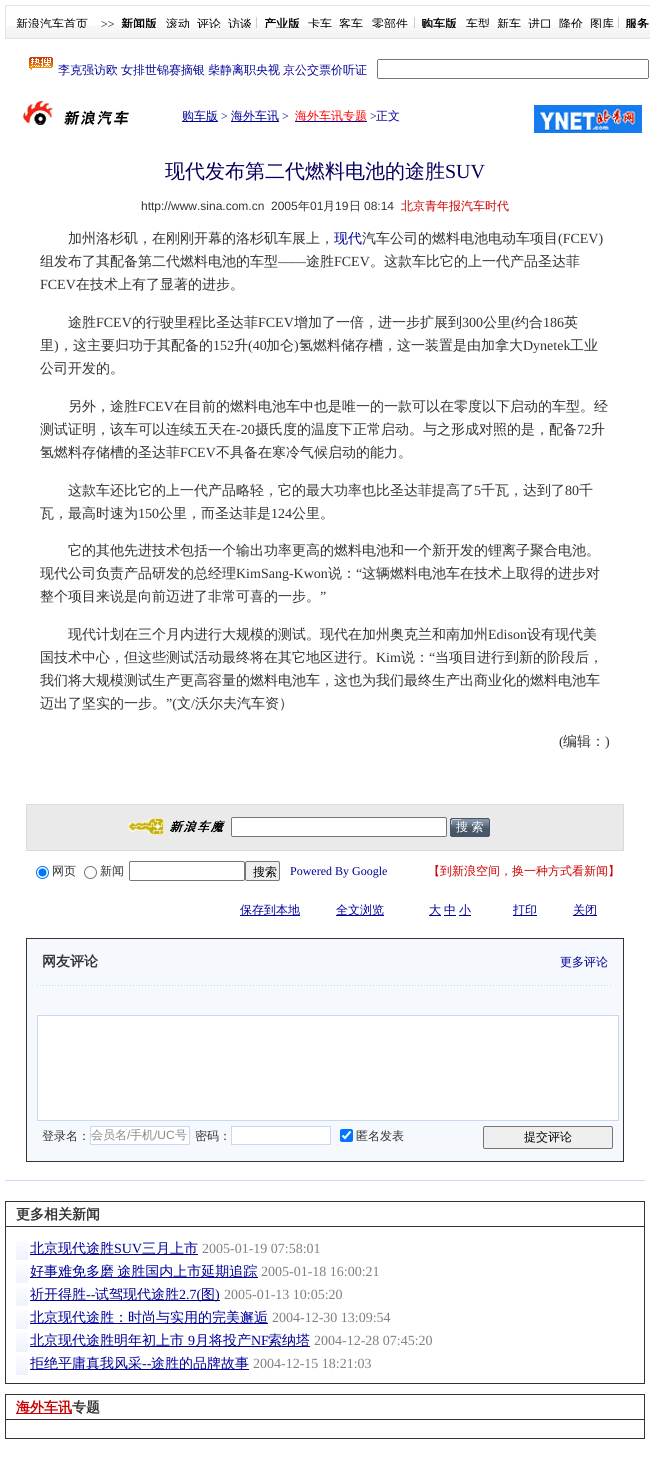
#include <cairo.h>
#include <math.h>
#include <stddef.h>

static cairo_t *ctx;

static void use_color(int r, int g, int b) {
    cairo_set_source_rgb(ctx, r / 255.0, g / 255.0, b / 255.0);
}

static void spaced_text(double x, double y, const char *s, double letter, double word) {
    cairo_move_to(ctx, x, y);
    while (*s) {
        char ch[5] = {0};
        int n = 0;
        do ch[n++] = *s++; while ((*s & 0xC0) == 0x80);
        cairo_show_text(ctx, ch);
        cairo_rel_move_to(ctx, letter + word * (*ch == ' '), 0);
    }
}

static void round_rect(double x, double y, double w, double h, double r) {
    cairo_new_sub_path(ctx);
    cairo_arc(ctx, x + w - r, y + h - r, r, 0, M_PI / 2);
    cairo_arc(ctx, x + r, y + h - r, r, M_PI / 2, M_PI);
    cairo_arc(ctx, x + r, y + r, r, M_PI, 1.5 * M_PI);
    cairo_arc(ctx, x + w - r, y + r, r, 1.5 * M_PI, 2 * M_PI);
    cairo_close_path(ctx);
}

static void picture(const char *path, double x, double y, double w, double h) {
    cairo_surface_t *image = cairo_image_surface_create_from_png(path);
    cairo_save(ctx);
    cairo_set_source_surface(ctx, image, x, y);
    cairo_rectangle(ctx, x, y, w, h);
    cairo_fill(ctx);
    cairo_restore(ctx);
    cairo_surface_destroy(image);
}

int main(void) {
    cairo_surface_t *surface = cairo_image_surface_create(CAIRO_FORMAT_RGB24, 650, 1459);
    ctx = cairo_create(surface);
    cairo_font_options_t *options = cairo_font_options_create();
    cairo_font_options_set_hint_metrics(options, CAIRO_HINT_METRICS_OFF);
    cairo_font_options_set_hint_style(options, CAIRO_HINT_STYLE_NONE);
    cairo_set_font_options(ctx, options);
    cairo_set_miter_limit(ctx, 4);
    use_color(255, 255, 255);
    cairo_paint(ctx);
    picture("img1.png", 6, 25, 644, 13);
    cairo_rectangle(ctx, 5.5, 5.5, 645, 33);
    use_color(228, 228, 228);
    cairo_set_line_width(ctx, 1);
    cairo_stroke(ctx);
    cairo_save(ctx);
    cairo_rectangle(ctx, 6, 17, 93, 11);
    cairo_clip(ctx);
    cairo_select_font_face(ctx, "WenQuanYi Zen Hei Medium", CAIRO_FONT_SLANT_NORMAL, CAIRO_FONT_WEIGHT_NORMAL);
    cairo_set_font_size(ctx, 12);
    use_color(0, 0, 0);
    cairo_move_to(ctx, 16, 28);
    cairo_show_text(ctx, "新浪汽车首页");
    cairo_restore(ctx);
    cairo_select_font_face(ctx, "Liberation Serif", CAIRO_FONT_SLANT_NORMAL, CAIRO_FONT_WEIGHT_NORMAL);
    cairo_set_font_size(ctx, 12);
    use_color(0, 0, 0);
    cairo_move_to(ctx, 101, 28);
    cairo_show_text(ctx, ">>");
    cairo_save(ctx);
    cairo_rectangle(ctx, 116, 17, 47, 11);
    cairo_clip(ctx);
    cairo_select_font_face(ctx, "WenQuanYi Zen Hei", CAIRO_FONT_SLANT_NORMAL, CAIRO_FONT_WEIGHT_BOLD);
    cairo_move_to(ctx, 121, 28);
    cairo_show_text(ctx, "新闻版");
    cairo_restore(ctx);
    cairo_save(ctx);
    cairo_rectangle(ctx, 163, 17, 31, 11);
    cairo_clip(ctx);
    cairo_select_font_face(ctx, "WenQuanYi Zen Hei Medium", CAIRO_FONT_SLANT_NORMAL, CAIRO_FONT_WEIGHT_NORMAL);
    cairo_move_to(ctx, 166, 28);
    cairo_show_text(ctx, "滚动");
    cairo_restore(ctx);
    cairo_save(ctx);
    cairo_rectangle(ctx, 194, 17, 30, 11);
    cairo_clip(ctx);
    cairo_select_font_face(ctx, "WenQuanYi Zen Hei Medium", CAIRO_FONT_SLANT_NORMAL, CAIRO_FONT_WEIGHT_NORMAL);
    cairo_move_to(ctx, 197, 28);
    cairo_show_text(ctx, "评论");
    cairo_restore(ctx);
    cairo_save(ctx);
    cairo_rectangle(ctx, 224, 17, 31, 11);
    cairo_clip(ctx);
    cairo_select_font_face(ctx, "WenQuanYi Zen Hei Medium", CAIRO_FONT_SLANT_NORMAL, CAIRO_FONT_WEIGHT_NORMAL);
    cairo_move_to(ctx, 228, 28);
    cairo_show_text(ctx, "访谈");
    cairo_restore(ctx);
    picture("img2.png", 256, 16, 1, 12);
    cairo_save(ctx);
    cairo_rectangle(ctx, 258, 17, 47, 11);
    cairo_clip(ctx);
    cairo_select_font_face(ctx, "WenQuanYi Zen Hei", CAIRO_FONT_SLANT_NORMAL, CAIRO_FONT_WEIGHT_BOLD);
    cairo_move_to(ctx, 264, 28);
    cairo_show_text(ctx, "产业版");
    cairo_restore(ctx);
    cairo_save(ctx);
    cairo_rectangle(ctx, 305, 17, 31, 11);
    cairo_clip(ctx);
    cairo_select_font_face(ctx, "WenQuanYi Zen Hei Medium", CAIRO_FONT_SLANT_NORMAL, CAIRO_FONT_WEIGHT_NORMAL);
    cairo_move_to(ctx, 308, 28);
    cairo_show_text(ctx, "卡车");
    cairo_restore(ctx);
    cairo_save(ctx);
    cairo_rectangle(ctx, 336, 17, 31, 11);
    cairo_clip(ctx);
    cairo_select_font_face(ctx, "WenQuanYi Zen Hei Medium", CAIRO_FONT_SLANT_NORMAL, CAIRO_FONT_WEIGHT_NORMAL);
    cairo_move_to(ctx, 339, 28);
    cairo_show_text(ctx, "客车");
    cairo_restore(ctx);
    cairo_save(ctx);
    cairo_rectangle(ctx, 367, 17, 46, 11);
    cairo_clip(ctx);
    cairo_select_font_face(ctx, "WenQuanYi Zen Hei Medium", CAIRO_FONT_SLANT_NORMAL, CAIRO_FONT_WEIGHT_NORMAL);
    cairo_move_to(ctx, 372, 28);
    cairo_show_text(ctx, "零部件");
    cairo_restore(ctx);
    picture("img2.png", 414, 16, 1, 12);
    cairo_save(ctx);
    cairo_rectangle(ctx, 416, 17, 46, 11);
    cairo_clip(ctx);
    cairo_select_font_face(ctx, "WenQuanYi Zen Hei", CAIRO_FONT_SLANT_NORMAL, CAIRO_FONT_WEIGHT_BOLD);
    cairo_move_to(ctx, 421, 28);
    cairo_show_text(ctx, "购车版");
    cairo_restore(ctx);
    cairo_save(ctx);
    cairo_rectangle(ctx, 462, 17, 31, 11);
    cairo_clip(ctx);
    cairo_select_font_face(ctx, "WenQuanYi Zen Hei Medium", CAIRO_FONT_SLANT_NORMAL, CAIRO_FONT_WEIGHT_NORMAL);
    cairo_move_to(ctx, 466, 28);
    cairo_show_text(ctx, "车型");
    cairo_restore(ctx);
    cairo_save(ctx);
    cairo_rectangle(ctx, 493, 17, 31, 11);
    cairo_clip(ctx);
    cairo_select_font_face(ctx, "WenQuanYi Zen Hei Medium", CAIRO_FONT_SLANT_NORMAL, CAIRO_FONT_WEIGHT_NORMAL);
    cairo_move_to(ctx, 497, 28);
    cairo_show_text(ctx, "新车");
    cairo_restore(ctx);
    cairo_save(ctx);
    cairo_rectangle(ctx, 524, 17, 31, 11);
    cairo_clip(ctx);
    cairo_select_font_face(ctx, "WenQuanYi Zen Hei Medium", CAIRO_FONT_SLANT_NORMAL, CAIRO_FONT_WEIGHT_NORMAL);
    cairo_move_to(ctx, 528, 28);
    cairo_show_text(ctx, "进口");
    cairo_restore(ctx);
    cairo_save(ctx);
    cairo_rectangle(ctx, 555, 17, 31, 11);
    cairo_clip(ctx);
    cairo_select_font_face(ctx, "WenQuanYi Zen Hei Medium", CAIRO_FONT_SLANT_NORMAL, CAIRO_FONT_WEIGHT_NORMAL);
    cairo_move_to(ctx, 559, 28);
    cairo_show_text(ctx, "降价");
    cairo_restore(ctx);
    cairo_save(ctx);
    cairo_rectangle(ctx, 586, 17, 31, 11);
    cairo_clip(ctx);
    cairo_select_font_face(ctx, "WenQuanYi Zen Hei Medium", CAIRO_FONT_SLANT_NORMAL, CAIRO_FONT_WEIGHT_NORMAL);
    cairo_move_to(ctx, 590, 28);
    cairo_show_text(ctx, "图库");
    cairo_restore(ctx);
    picture("img2.png", 618, 16, 1, 12);
    cairo_save(ctx);
    cairo_rectangle(ctx, 620, 17, 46, 11);
    cairo_clip(ctx);
    cairo_select_font_face(ctx, "WenQuanYi Zen Hei", CAIRO_FONT_SLANT_NORMAL, CAIRO_FONT_WEIGHT_BOLD);
    cairo_move_to(ctx, 625, 28);
    cairo_show_text(ctx, "服务");
    cairo_restore(ctx);
    picture("img3.png", 29, 57, 620, 22);
    picture("img4.png", 22, 100, 108, 26);
    use_color(0, 0, 153);
    cairo_rectangle(ctx, 182, 121, 36, 1);
    cairo_fill(ctx);
    cairo_select_font_face(ctx, "WenQuanYi Zen Hei Medium", CAIRO_FONT_SLANT_NORMAL, CAIRO_FONT_WEIGHT_NORMAL);
    cairo_move_to(ctx, 182, 120);
    cairo_show_text(ctx, "购车版");
    cairo_select_font_face(ctx, "Liberation Serif", CAIRO_FONT_SLANT_NORMAL, CAIRO_FONT_WEIGHT_NORMAL);
    cairo_move_to(ctx, 221, 120);
    cairo_show_text(ctx, ">");
    cairo_rectangle(ctx, 231, 121, 48, 1);
    cairo_fill(ctx);
    cairo_select_font_face(ctx, "WenQuanYi Zen Hei Medium", CAIRO_FONT_SLANT_NORMAL, CAIRO_FONT_WEIGHT_NORMAL);
    cairo_move_to(ctx, 231, 120);
    cairo_show_text(ctx, "海外车讯");
    cairo_select_font_face(ctx, "Liberation Serif", CAIRO_FONT_SLANT_NORMAL, CAIRO_FONT_WEIGHT_NORMAL);
    cairo_move_to(ctx, 282, 120);
    cairo_show_text(ctx, ">");
    cairo_rectangle(ctx, 295, 121, 72, 1);
    cairo_fill(ctx);
    cairo_select_font_face(ctx, "WenQuanYi Zen Hei Medium", CAIRO_FONT_SLANT_NORMAL, CAIRO_FONT_WEIGHT_NORMAL);
    use_color(255, 0, 0);
    cairo_move_to(ctx, 295, 120);
    cairo_show_text(ctx, "海外车讯专题");
    cairo_select_font_face(ctx, "Liberation Serif", CAIRO_FONT_SLANT_NORMAL, CAIRO_FONT_WEIGHT_NORMAL);
    use_color(0, 0, 153);
    cairo_move_to(ctx, 370, 120);
    cairo_show_text(ctx, ">");
    cairo_select_font_face(ctx, "WenQuanYi Zen Hei Medium", CAIRO_FONT_SLANT_NORMAL, CAIRO_FONT_WEIGHT_NORMAL);
    cairo_move_to(ctx, 376, 120);
    cairo_show_text(ctx, "正文");
    picture("img5.png", 534, 105, 108, 28);
    cairo_set_font_size(ctx, 20);
    use_color(3, 0, 92);
    cairo_move_to(ctx, 165, 178);
    cairo_show_text(ctx, "现代发布第二代燃料电池的途胜");
    cairo_select_font_face(ctx, "Liberation Serif", CAIRO_FONT_SLANT_NORMAL, CAIRO_FONT_WEIGHT_NORMAL);
    cairo_move_to(ctx, 445, 178);
    cairo_show_text(ctx, "SUV");
    cairo_select_font_face(ctx, "Liberation Sans", CAIRO_FONT_SLANT_NORMAL, CAIRO_FONT_WEIGHT_NORMAL);
    cairo_set_font_size(ctx, 12);
    use_color(51, 51, 51);
    cairo_move_to(ctx, 141, 210);
    cairo_show_text(ctx, "http://www.sina.com.cn");
    cairo_move_to(ctx, 271, 210);
    cairo_show_text(ctx, "2005");
    cairo_select_font_face(ctx, "WenQuanYi Zen Hei Medium", CAIRO_FONT_SLANT_NORMAL, CAIRO_FONT_WEIGHT_NORMAL);
    cairo_move_to(ctx, 298, 210);
    cairo_show_text(ctx, "年");
    cairo_select_font_face(ctx, "Liberation Sans", CAIRO_FONT_SLANT_NORMAL, CAIRO_FONT_WEIGHT_NORMAL);
    cairo_move_to(ctx, 310, 210);
    cairo_show_text(ctx, "01");
    cairo_select_font_face(ctx, "WenQuanYi Zen Hei Medium", CAIRO_FONT_SLANT_NORMAL, CAIRO_FONT_WEIGHT_NORMAL);
    cairo_move_to(ctx, 323, 210);
    cairo_show_text(ctx, "月");
    cairo_select_font_face(ctx, "Liberation Sans", CAIRO_FONT_SLANT_NORMAL, CAIRO_FONT_WEIGHT_NORMAL);
    cairo_move_to(ctx, 335, 210);
    cairo_show_text(ctx, "19");
    cairo_select_font_face(ctx, "WenQuanYi Zen Hei Medium", CAIRO_FONT_SLANT_NORMAL, CAIRO_FONT_WEIGHT_NORMAL);
    cairo_move_to(ctx, 349, 210);
    cairo_show_text(ctx, "日");
    cairo_select_font_face(ctx, "Liberation Sans", CAIRO_FONT_SLANT_NORMAL, CAIRO_FONT_WEIGHT_NORMAL);
    cairo_move_to(ctx, 364, 210);
    cairo_show_text(ctx, "08:14");
    cairo_select_font_face(ctx, "WenQuanYi Zen Hei Medium", CAIRO_FONT_SLANT_NORMAL, CAIRO_FONT_WEIGHT_NORMAL);
    use_color(204, 0, 0);
    cairo_move_to(ctx, 401, 210);
    cairo_show_text(ctx, "北京青年报汽车时代");
    cairo_set_font_size(ctx, 14);
    use_color(51, 51, 51);
    cairo_move_to(ctx, 68, 243);
    cairo_show_text(ctx, "加州洛杉矶，在刚刚开幕的洛杉矶车展上，");
    use_color(0, 0, 153);
    cairo_move_to(ctx, 334, 243);
    cairo_show_text(ctx, "现代");
    use_color(51, 51, 51);
    cairo_move_to(ctx, 362, 243);
    cairo_show_text(ctx, "汽车公司的燃料电池电动车项目");
    cairo_select_font_face(ctx, "Liberation Serif", CAIRO_FONT_SLANT_NORMAL, CAIRO_FONT_WEIGHT_NORMAL);
    cairo_move_to(ctx, 558, 243);
    cairo_show_text(ctx, "(FCEV)");
    cairo_select_font_face(ctx, "WenQuanYi Zen Hei Medium", CAIRO_FONT_SLANT_NORMAL, CAIRO_FONT_WEIGHT_NORMAL);
    cairo_move_to(ctx, 40, 266);
    cairo_show_text(ctx, "组发布了其配备第二代燃料电池的车型");
    cairo_select_font_face(ctx, "Liberation Serif", CAIRO_FONT_SLANT_NORMAL, CAIRO_FONT_WEIGHT_NORMAL);
    cairo_move_to(ctx, 278, 266);
    cairo_show_text(ctx, "——");
    cairo_select_font_face(ctx, "WenQuanYi Zen Hei Medium", CAIRO_FONT_SLANT_NORMAL, CAIRO_FONT_WEIGHT_NORMAL);
    cairo_move_to(ctx, 306, 266);
    cairo_show_text(ctx, "途胜");
    cairo_select_font_face(ctx, "Liberation Serif", CAIRO_FONT_SLANT_NORMAL, CAIRO_FONT_WEIGHT_NORMAL);
    cairo_move_to(ctx, 334, 266);
    cairo_show_text(ctx, "FCEV");
    cairo_select_font_face(ctx, "WenQuanYi Zen Hei Medium", CAIRO_FONT_SLANT_NORMAL, CAIRO_FONT_WEIGHT_NORMAL);
    cairo_move_to(ctx, 370, 266);
    cairo_show_text(ctx, "。这款车比它的上一代产品圣达菲");
    cairo_select_font_face(ctx, "Liberation Serif", CAIRO_FONT_SLANT_NORMAL, CAIRO_FONT_WEIGHT_NORMAL);
    cairo_move_to(ctx, 40, 289);
    cairo_show_text(ctx, "FCEV");
    cairo_select_font_face(ctx, "WenQuanYi Zen Hei Medium", CAIRO_FONT_SLANT_NORMAL, CAIRO_FONT_WEIGHT_NORMAL);
    cairo_move_to(ctx, 76, 289);
    cairo_show_text(ctx, "在技术上有了显著的进步。");
    cairo_move_to(ctx, 68, 327);
    cairo_show_text(ctx, "途胜");
    cairo_select_font_face(ctx, "Liberation Serif", CAIRO_FONT_SLANT_NORMAL, CAIRO_FONT_WEIGHT_NORMAL);
    cairo_move_to(ctx, 96, 327);
    cairo_show_text(ctx, "FCEV");
    cairo_select_font_face(ctx, "WenQuanYi Zen Hei Medium", CAIRO_FONT_SLANT_NORMAL, CAIRO_FONT_WEIGHT_NORMAL);
    cairo_move_to(ctx, 132, 327);
    cairo_show_text(ctx, "的行驶里程比圣达菲");
    cairo_select_font_face(ctx, "Liberation Serif", CAIRO_FONT_SLANT_NORMAL, CAIRO_FONT_WEIGHT_NORMAL);
    cairo_move_to(ctx, 258, 327);
    cairo_show_text(ctx, "FCEV");
    cairo_select_font_face(ctx, "WenQuanYi Zen Hei Medium", CAIRO_FONT_SLANT_NORMAL, CAIRO_FONT_WEIGHT_NORMAL);
    cairo_move_to(ctx, 294, 327);
    cairo_show_text(ctx, "增加了一倍，进一步扩展到");
    cairo_select_font_face(ctx, "Liberation Serif", CAIRO_FONT_SLANT_NORMAL, CAIRO_FONT_WEIGHT_NORMAL);
    cairo_move_to(ctx, 462, 327);
    cairo_show_text(ctx, "300");
    cairo_select_font_face(ctx, "WenQuanYi Zen Hei Medium", CAIRO_FONT_SLANT_NORMAL, CAIRO_FONT_WEIGHT_NORMAL);
    cairo_move_to(ctx, 483, 327);
    cairo_show_text(ctx, "公里");
    cairo_select_font_face(ctx, "Liberation Serif", CAIRO_FONT_SLANT_NORMAL, CAIRO_FONT_WEIGHT_NORMAL);
    cairo_move_to(ctx, 511, 327);
    cairo_show_text(ctx, "(");
    cairo_select_font_face(ctx, "WenQuanYi Zen Hei Medium", CAIRO_FONT_SLANT_NORMAL, CAIRO_FONT_WEIGHT_NORMAL);
    cairo_move_to(ctx, 515, 327);
    cairo_show_text(ctx, "约合");
    cairo_select_font_face(ctx, "Liberation Serif", CAIRO_FONT_SLANT_NORMAL, CAIRO_FONT_WEIGHT_NORMAL);
    cairo_move_to(ctx, 543, 327);
    cairo_show_text(ctx, "186");
    cairo_select_font_face(ctx, "WenQuanYi Zen Hei Medium", CAIRO_FONT_SLANT_NORMAL, CAIRO_FONT_WEIGHT_NORMAL);
    cairo_move_to(ctx, 564, 327);
    cairo_show_text(ctx, "英");
    cairo_move_to(ctx, 40, 350);
    cairo_show_text(ctx, "里");
    cairo_select_font_face(ctx, "Liberation Serif", CAIRO_FONT_SLANT_NORMAL, CAIRO_FONT_WEIGHT_NORMAL);
    cairo_move_to(ctx, 54, 350);
    cairo_show_text(ctx, ")");
    cairo_select_font_face(ctx, "WenQuanYi Zen Hei Medium", CAIRO_FONT_SLANT_NORMAL, CAIRO_FONT_WEIGHT_NORMAL);
    cairo_move_to(ctx, 59, 350);
    cairo_show_text(ctx, "，这主要归功于其配备的");
    cairo_select_font_face(ctx, "Liberation Serif", CAIRO_FONT_SLANT_NORMAL, CAIRO_FONT_WEIGHT_NORMAL);
    cairo_move_to(ctx, 213, 350);
    cairo_show_text(ctx, "152");
    cairo_select_font_face(ctx, "WenQuanYi Zen Hei Medium", CAIRO_FONT_SLANT_NORMAL, CAIRO_FONT_WEIGHT_NORMAL);
    cairo_move_to(ctx, 234, 350);
    cairo_show_text(ctx, "升");
    cairo_select_font_face(ctx, "Liberation Serif", CAIRO_FONT_SLANT_NORMAL, CAIRO_FONT_WEIGHT_NORMAL);
    cairo_move_to(ctx, 248, 350);
    cairo_show_text(ctx, "(40");
    cairo_select_font_face(ctx, "WenQuanYi Zen Hei Medium", CAIRO_FONT_SLANT_NORMAL, CAIRO_FONT_WEIGHT_NORMAL);
    cairo_move_to(ctx, 266, 350);
    cairo_show_text(ctx, "加仑");
    cairo_select_font_face(ctx, "Liberation Serif", CAIRO_FONT_SLANT_NORMAL, CAIRO_FONT_WEIGHT_NORMAL);
    cairo_move_to(ctx, 294, 350);
    cairo_show_text(ctx, ")");
    cairo_select_font_face(ctx, "WenQuanYi Zen Hei Medium", CAIRO_FONT_SLANT_NORMAL, CAIRO_FONT_WEIGHT_NORMAL);
    cairo_move_to(ctx, 299, 350);
    cairo_show_text(ctx, "氢燃料储存槽，这一装置是由加拿大");
    cairo_select_font_face(ctx, "Liberation Serif", CAIRO_FONT_SLANT_NORMAL, CAIRO_FONT_WEIGHT_NORMAL);
    cairo_move_to(ctx, 523, 350);
    cairo_show_text(ctx, "Dynetek");
    cairo_select_font_face(ctx, "WenQuanYi Zen Hei Medium", CAIRO_FONT_SLANT_NORMAL, CAIRO_FONT_WEIGHT_NORMAL);
    cairo_move_to(ctx, 570, 350);
    cairo_show_text(ctx, "工业");
    cairo_move_to(ctx, 40, 373);
    cairo_show_text(ctx, "公司开发的。");
    cairo_move_to(ctx, 68, 411);
    cairo_show_text(ctx, "另外，途胜");
    cairo_select_font_face(ctx, "Liberation Serif", CAIRO_FONT_SLANT_NORMAL, CAIRO_FONT_WEIGHT_NORMAL);
    cairo_move_to(ctx, 138, 411);
    cairo_show_text(ctx, "FCEV");
    cairo_select_font_face(ctx, "WenQuanYi Zen Hei Medium", CAIRO_FONT_SLANT_NORMAL, CAIRO_FONT_WEIGHT_NORMAL);
    cairo_move_to(ctx, 174, 411);
    cairo_show_text(ctx, "在目前的燃料电池车中也是唯一的一款可以在零度以下启动的车型。经");
    cairo_move_to(ctx, 40, 434);
    cairo_show_text(ctx, "测试证明，该车可以连续五天在");
    cairo_select_font_face(ctx, "Liberation Serif", CAIRO_FONT_SLANT_NORMAL, CAIRO_FONT_WEIGHT_NORMAL);
    cairo_move_to(ctx, 236, 434);
    cairo_show_text(ctx, "-20");
    cairo_select_font_face(ctx, "WenQuanYi Zen Hei Medium", CAIRO_FONT_SLANT_NORMAL, CAIRO_FONT_WEIGHT_NORMAL);
    cairo_move_to(ctx, 255, 434);
    cairo_show_text(ctx, "摄氏度的温度下正常启动。与之形成对照的是，配备");
    cairo_select_font_face(ctx, "Liberation Serif", CAIRO_FONT_SLANT_NORMAL, CAIRO_FONT_WEIGHT_NORMAL);
    cairo_move_to(ctx, 577, 434);
    cairo_show_text(ctx, "72");
    cairo_select_font_face(ctx, "WenQuanYi Zen Hei Medium", CAIRO_FONT_SLANT_NORMAL, CAIRO_FONT_WEIGHT_NORMAL);
    cairo_move_to(ctx, 591, 434);
    cairo_show_text(ctx, "升");
    cairo_move_to(ctx, 40, 457);
    cairo_show_text(ctx, "氢燃料存储槽的圣达菲");
    cairo_select_font_face(ctx, "Liberation Serif", CAIRO_FONT_SLANT_NORMAL, CAIRO_FONT_WEIGHT_NORMAL);
    cairo_move_to(ctx, 180, 457);
    cairo_show_text(ctx, "FCEV");
    cairo_select_font_face(ctx, "WenQuanYi Zen Hei Medium", CAIRO_FONT_SLANT_NORMAL, CAIRO_FONT_WEIGHT_NORMAL);
    cairo_move_to(ctx, 216, 457);
    cairo_show_text(ctx, "不具备在寒冷气候启动的能力。");
    cairo_move_to(ctx, 68, 495);
    cairo_show_text(ctx, "这款车还比它的上一代产品略轻，它的最大功率也比圣达菲提高了");
    cairo_select_font_face(ctx, "Liberation Serif", CAIRO_FONT_SLANT_NORMAL, CAIRO_FONT_WEIGHT_NORMAL);
    cairo_move_to(ctx, 474, 495);
    cairo_show_text(ctx, "5");
    cairo_select_font_face(ctx, "WenQuanYi Zen Hei Medium", CAIRO_FONT_SLANT_NORMAL, CAIRO_FONT_WEIGHT_NORMAL);
    cairo_move_to(ctx, 481, 495);
    cairo_show_text(ctx, "千瓦，达到了");
    cairo_select_font_face(ctx, "Liberation Serif", CAIRO_FONT_SLANT_NORMAL, CAIRO_FONT_WEIGHT_NORMAL);
    cairo_move_to(ctx, 565, 495);
    cairo_show_text(ctx, "80");
    cairo_select_font_face(ctx, "WenQuanYi Zen Hei Medium", CAIRO_FONT_SLANT_NORMAL, CAIRO_FONT_WEIGHT_NORMAL);
    cairo_move_to(ctx, 579, 495);
    cairo_show_text(ctx, "千");
    cairo_move_to(ctx, 40, 518);
    cairo_show_text(ctx, "瓦，最高时速为");
    cairo_select_font_face(ctx, "Liberation Serif", CAIRO_FONT_SLANT_NORMAL, CAIRO_FONT_WEIGHT_NORMAL);
    cairo_move_to(ctx, 138, 518);
    cairo_show_text(ctx, "150");
    cairo_select_font_face(ctx, "WenQuanYi Zen Hei Medium", CAIRO_FONT_SLANT_NORMAL, CAIRO_FONT_WEIGHT_NORMAL);
    cairo_move_to(ctx, 159, 518);
    cairo_show_text(ctx, "公里，而圣达菲是");
    cairo_select_font_face(ctx, "Liberation Serif", CAIRO_FONT_SLANT_NORMAL, CAIRO_FONT_WEIGHT_NORMAL);
    cairo_move_to(ctx, 271, 518);
    cairo_show_text(ctx, "124");
    cairo_select_font_face(ctx, "WenQuanYi Zen Hei Medium", CAIRO_FONT_SLANT_NORMAL, CAIRO_FONT_WEIGHT_NORMAL);
    cairo_move_to(ctx, 292, 518);
    cairo_show_text(ctx, "公里。");
    cairo_move_to(ctx, 68, 555);
    cairo_show_text(ctx, "它的其他先进技术包括一个输出功率更高的燃料电池和一个新开发的锂离子聚合电池。");
    cairo_move_to(ctx, 40, 578);
    cairo_show_text(ctx, "现代公司负责产品研发的总经理");
    cairo_select_font_face(ctx, "Liberation Serif", CAIRO_FONT_SLANT_NORMAL, CAIRO_FONT_WEIGHT_NORMAL);
    cairo_move_to(ctx, 236, 578);
    cairo_show_text(ctx, "KimSang-Kwon");
    cairo_select_font_face(ctx, "WenQuanYi Zen Hei Medium", CAIRO_FONT_SLANT_NORMAL, CAIRO_FONT_WEIGHT_NORMAL);
    cairo_move_to(ctx, 328, 578);
    cairo_show_text(ctx, "说：");
    cairo_select_font_face(ctx, "Liberation Serif", CAIRO_FONT_SLANT_NORMAL, CAIRO_FONT_WEIGHT_NORMAL);
    cairo_move_to(ctx, 356, 578);
    cairo_show_text(ctx, "“");
    cairo_select_font_face(ctx, "WenQuanYi Zen Hei Medium", CAIRO_FONT_SLANT_NORMAL, CAIRO_FONT_WEIGHT_NORMAL);
    cairo_move_to(ctx, 362, 578);
    cairo_show_text(ctx, "这辆燃料电池车在技术上取得的进步对");
    cairo_move_to(ctx, 40, 601);
    cairo_show_text(ctx, "整个项目来说是向前迈进了非常可喜的一步。");
    cairo_select_font_face(ctx, "Liberation Serif", CAIRO_FONT_SLANT_NORMAL, CAIRO_FONT_WEIGHT_NORMAL);
    cairo_move_to(ctx, 320, 601);
    cairo_show_text(ctx, "”");
    cairo_select_font_face(ctx, "WenQuanYi Zen Hei Medium", CAIRO_FONT_SLANT_NORMAL, CAIRO_FONT_WEIGHT_NORMAL);
    cairo_move_to(ctx, 68, 639);
    cairo_show_text(ctx, "现代计划在三个月内进行大规模的测试。现代在加州奥克兰和南加州");
    cairo_select_font_face(ctx, "Liberation Serif", CAIRO_FONT_SLANT_NORMAL, CAIRO_FONT_WEIGHT_NORMAL);
    cairo_move_to(ctx, 488, 639);
    cairo_show_text(ctx, "Edison");
    cairo_select_font_face(ctx, "WenQuanYi Zen Hei Medium", CAIRO_FONT_SLANT_NORMAL, CAIRO_FONT_WEIGHT_NORMAL);
    cairo_move_to(ctx, 527, 639);
    cairo_show_text(ctx, "设有现代美");
    cairo_move_to(ctx, 40, 662);
    cairo_show_text(ctx, "国技术中心，但这些测试活动最终将在其它地区进行。");
    cairo_select_font_face(ctx, "Liberation Serif", CAIRO_FONT_SLANT_NORMAL, CAIRO_FONT_WEIGHT_NORMAL);
    cairo_move_to(ctx, 376, 662);
    cairo_show_text(ctx, "Kim");
    cairo_select_font_face(ctx, "WenQuanYi Zen Hei Medium", CAIRO_FONT_SLANT_NORMAL, CAIRO_FONT_WEIGHT_NORMAL);
    cairo_move_to(ctx, 401, 662);
    cairo_show_text(ctx, "说：");
    cairo_select_font_face(ctx, "Liberation Serif", CAIRO_FONT_SLANT_NORMAL, CAIRO_FONT_WEIGHT_NORMAL);
    cairo_move_to(ctx, 429, 662);
    cairo_show_text(ctx, "“");
    cairo_select_font_face(ctx, "WenQuanYi Zen Hei Medium", CAIRO_FONT_SLANT_NORMAL, CAIRO_FONT_WEIGHT_NORMAL);
    cairo_move_to(ctx, 435, 662);
    cairo_show_text(ctx, "当项目进行到新的阶段后，");
    cairo_move_to(ctx, 40, 685);
    cairo_show_text(ctx, "我们将大规模测试生产更高容量的燃料电池车，这也为我们最终生产出商业化的燃料电池车");
    cairo_move_to(ctx, 40, 708);
    cairo_show_text(ctx, "迈出了坚实的一步。");
    cairo_select_font_face(ctx, "Liberation Serif", CAIRO_FONT_SLANT_NORMAL, CAIRO_FONT_WEIGHT_NORMAL);
    cairo_move_to(ctx, 166, 708);
    cairo_show_text(ctx, "”(");
    cairo_select_font_face(ctx, "WenQuanYi Zen Hei Medium", CAIRO_FONT_SLANT_NORMAL, CAIRO_FONT_WEIGHT_NORMAL);
    cairo_move_to(ctx, 177, 708);
    cairo_show_text(ctx, "文");
    cairo_select_font_face(ctx, "Liberation Serif", CAIRO_FONT_SLANT_NORMAL, CAIRO_FONT_WEIGHT_NORMAL);
    cairo_move_to(ctx, 191, 708);
    cairo_show_text(ctx, "/");
    cairo_select_font_face(ctx, "WenQuanYi Zen Hei Medium", CAIRO_FONT_SLANT_NORMAL, CAIRO_FONT_WEIGHT_NORMAL);
    cairo_move_to(ctx, 195, 708);
    cairo_show_text(ctx, "沃尔夫汽车资）");
    cairo_select_font_face(ctx, "Liberation Serif", CAIRO_FONT_SLANT_NORMAL, CAIRO_FONT_WEIGHT_NORMAL);
    cairo_move_to(ctx, 559, 746);
    cairo_show_text(ctx, "(");
    cairo_select_font_face(ctx, "WenQuanYi Zen Hei Medium", CAIRO_FONT_SLANT_NORMAL, CAIRO_FONT_WEIGHT_NORMAL);
    cairo_move_to(ctx, 563, 746);
    cairo_show_text(ctx, "编辑：");
    cairo_select_font_face(ctx, "Liberation Serif", CAIRO_FONT_SLANT_NORMAL, CAIRO_FONT_WEIGHT_NORMAL);
    cairo_move_to(ctx, 605, 746);
    cairo_show_text(ctx, ")");
    use_color(234, 234, 234);
    cairo_rectangle(ctx, 26.5, 804.5, 597, 46);
    cairo_fill_preserve(ctx);
    use_color(218, 218, 218);
    cairo_stroke(ctx);
    picture("img6.png", 128, 818, 98, 17);
    use_color(255, 255, 255);
    round_rect(231.5, 817.5, 215, 19, 1.5);
    cairo_fill_preserve(ctx);
    use_color(118, 118, 118);
    cairo_stroke(ctx);
    picture("img7.png", 450, 818, 40, 19);
    cairo_select_font_face(ctx, "WenQuanYi Zen Hei Medium", CAIRO_FONT_SLANT_NORMAL, CAIRO_FONT_WEIGHT_NORMAL);
    cairo_set_font_size(ctx, 12);
    use_color(255, 255, 255);
    cairo_move_to(ctx, 456, 831);
    cairo_show_text(ctx, "搜 索");
    cairo_new_path(ctx);
    cairo_arc(ctx, 42.5, 872.5, 6, 0, 2 * M_PI);
    use_color(0, 117, 255);
    cairo_stroke(ctx);
    cairo_arc(ctx, 42.5, 872.5, 4, 0, 2 * M_PI);
    cairo_fill(ctx);
    use_color(51, 51, 51);
    cairo_move_to(ctx, 52, 875);
    cairo_show_text(ctx, "网页");
    cairo_new_path(ctx);
    cairo_arc(ctx, 90.5, 872.5, 6, 0, 2 * M_PI);
    use_color(118, 118, 118);
    cairo_stroke(ctx);
    use_color(51, 51, 51);
    cairo_move_to(ctx, 100, 875);
    cairo_show_text(ctx, "新闻");
    round_rect(129.5, 861.5, 115, 19, 1.5);
    use_color(118, 118, 118);
    cairo_stroke(ctx);
    use_color(239, 239, 239);
    round_rect(245.5, 861.5, 34, 19, 1.5);
    cairo_fill_preserve(ctx);
    use_color(118, 118, 118);
    cairo_stroke(ctx);
    use_color(0, 0, 0);
    cairo_move_to(ctx, 253, 876);
    cairo_show_text(ctx, "搜索");
    cairo_select_font_face(ctx, "Liberation Serif", CAIRO_FONT_SLANT_NORMAL, CAIRO_FONT_WEIGHT_NORMAL);
    use_color(0, 0, 153);
    cairo_move_to(ctx, 290, 875);
    cairo_show_text(ctx, "Powered By Google");
    cairo_select_font_face(ctx, "WenQuanYi Zen Hei Medium", CAIRO_FONT_SLANT_NORMAL, CAIRO_FONT_WEIGHT_NORMAL);
    use_color(204, 0, 0);
    cairo_move_to(ctx, 428, 875);
    cairo_show_text(ctx, "【到新浪空间，换一种方式看新闻】");
    use_color(0, 0, 153);
    cairo_rectangle(ctx, 240, 915, 60, 1);
    cairo_fill(ctx);
    cairo_move_to(ctx, 240, 914);
    cairo_show_text(ctx, "保存到本地");
    cairo_rectangle(ctx, 336, 915, 48, 1);
    cairo_fill(ctx);
    cairo_move_to(ctx, 336, 914);
    cairo_show_text(ctx, "全文浏览");
    cairo_rectangle(ctx, 429, 915, 12, 1);
    cairo_fill(ctx);
    cairo_move_to(ctx, 429, 914);
    cairo_show_text(ctx, "大");
    cairo_rectangle(ctx, 444, 915, 12, 1);
    cairo_fill(ctx);
    cairo_move_to(ctx, 444, 914);
    cairo_show_text(ctx, "中");
    cairo_rectangle(ctx, 459, 915, 12, 1);
    cairo_fill(ctx);
    cairo_move_to(ctx, 459, 914);
    cairo_show_text(ctx, "小");
    cairo_rectangle(ctx, 513, 915, 24, 1);
    cairo_fill(ctx);
    cairo_move_to(ctx, 513, 914);
    cairo_show_text(ctx, "打印");
    cairo_rectangle(ctx, 573, 915, 24, 1);
    cairo_fill(ctx);
    cairo_move_to(ctx, 573, 914);
    cairo_show_text(ctx, "关闭");
    use_color(245, 248, 253);
    cairo_rectangle(ctx, 26.5, 938.5, 597, 223);
    cairo_fill_preserve(ctx);
    use_color(52, 52, 52);
    cairo_stroke(ctx);
    cairo_select_font_face(ctx, "WenQuanYi Zen Hei", CAIRO_FONT_SLANT_NORMAL, CAIRO_FONT_WEIGHT_BOLD);
    cairo_set_font_size(ctx, 14);
    use_color(51, 51, 51);
    cairo_move_to(ctx, 42, 966);
    cairo_show_text(ctx, "网友评论");
    cairo_select_font_face(ctx, "WenQuanYi Zen Hei Medium", CAIRO_FONT_SLANT_NORMAL, CAIRO_FONT_WEIGHT_NORMAL);
    cairo_set_font_size(ctx, 12);
    use_color(0, 0, 153);
    cairo_move_to(ctx, 560, 966);
    cairo_show_text(ctx, "更多评论");
    picture("img8.png", 37, 985, 574, 1);
    use_color(255, 255, 255);
    cairo_rectangle(ctx, 37.5, 1015.5, 581, 105);
    cairo_fill_preserve(ctx);
    use_color(200, 216, 241);
    cairo_stroke(ctx);
    use_color(51, 51, 51);
    cairo_move_to(ctx, 42, 1140);
    cairo_show_text(ctx, "登录名：");
    use_color(255, 255, 255);
    cairo_rectangle(ctx, 90.5, 1126.5, 99, 18);
    cairo_fill_preserve(ctx);
    use_color(200, 216, 242);
    cairo_stroke(ctx);
    use_color(138, 138, 138);
    cairo_move_to(ctx, 91, 1139);
    cairo_show_text(ctx, "会员名");
    cairo_select_font_face(ctx, "Liberation Sans", CAIRO_FONT_SLANT_NORMAL, CAIRO_FONT_WEIGHT_NORMAL);
    cairo_move_to(ctx, 127, 1139);
    cairo_show_text(ctx, "/");
    cairo_select_font_face(ctx, "WenQuanYi Zen Hei Medium", CAIRO_FONT_SLANT_NORMAL, CAIRO_FONT_WEIGHT_NORMAL);
    cairo_move_to(ctx, 130, 1139);
    cairo_show_text(ctx, "手机");
    cairo_select_font_face(ctx, "Liberation Sans", CAIRO_FONT_SLANT_NORMAL, CAIRO_FONT_WEIGHT_NORMAL);
    cairo_move_to(ctx, 154, 1139);
    cairo_show_text(ctx, "/UC");
    cairo_select_font_face(ctx, "WenQuanYi Zen Hei Medium", CAIRO_FONT_SLANT_NORMAL, CAIRO_FONT_WEIGHT_NORMAL);
    cairo_move_to(ctx, 175, 1139);
    cairo_show_text(ctx, "号");
    use_color(51, 51, 51);
    cairo_move_to(ctx, 195, 1140);
    cairo_show_text(ctx, "密码：");
    use_color(255, 255, 255);
    cairo_rectangle(ctx, 231.5, 1126.5, 99, 18);
    cairo_fill_preserve(ctx);
    use_color(200, 216, 242);
    cairo_stroke(ctx);
    use_color(0, 117, 255);
    round_rect(340, 1129, 13, 13, 2);
    cairo_fill(ctx);
    cairo_new_path(ctx);
    cairo_move_to(ctx, 342.5, 1135.5);
    cairo_line_to(ctx, 345, 1138);
    cairo_line_to(ctx, 350.5, 1131.5);
    use_color(255, 255, 255);
    cairo_set_line_width(ctx, 2.1);
    cairo_stroke(ctx);
    use_color(51, 51, 51);
    cairo_move_to(ctx, 356, 1140);
    cairo_show_text(ctx, "匿名发表");
    use_color(239, 239, 239);
    round_rect(483.5, 1126.5, 129, 22, 1.5);
    cairo_fill_preserve(ctx);
    use_color(118, 118, 118);
    cairo_set_line_width(ctx, 1);
    cairo_stroke(ctx);
    use_color(0, 0, 0);
    cairo_move_to(ctx, 524, 1141);
    cairo_show_text(ctx, "提交评论");
    use_color(200, 216, 242);
    cairo_rectangle(ctx, 5, 1180, 640, 1);
    cairo_fill(ctx);
    cairo_rectangle(ctx, 5.5, 1201.5, 639, 25);
    use_color(51, 51, 51);
    cairo_stroke(ctx);
    cairo_select_font_face(ctx, "WenQuanYi Zen Hei", CAIRO_FONT_SLANT_NORMAL, CAIRO_FONT_WEIGHT_BOLD);
    cairo_set_font_size(ctx, 14);
    cairo_move_to(ctx, 16, 1219);
    cairo_show_text(ctx, "更多相关新闻");
    cairo_rectangle(ctx, 644, 1227, 1, 157);
    cairo_fill(ctx);
    cairo_rectangle(ctx, 5, 1383, 640, 1);
    cairo_fill(ctx);
    cairo_rectangle(ctx, 5, 1227, 1, 157);
    cairo_fill(ctx);
    picture("img9.png", 16, 1241, 12, 19);
    use_color(0, 0, 153);
    cairo_rectangle(ctx, 30, 1254, 168, 1);
    cairo_fill(ctx);
    cairo_select_font_face(ctx, "WenQuanYi Zen Hei Medium", CAIRO_FONT_SLANT_NORMAL, CAIRO_FONT_WEIGHT_NORMAL);
    cairo_move_to(ctx, 30, 1253);
    cairo_show_text(ctx, "北京现代途胜");
    cairo_select_font_face(ctx, "Liberation Serif", CAIRO_FONT_SLANT_NORMAL, CAIRO_FONT_WEIGHT_NORMAL);
    cairo_move_to(ctx, 114, 1253);
    cairo_show_text(ctx, "SUV");
    cairo_select_font_face(ctx, "WenQuanYi Zen Hei Medium", CAIRO_FONT_SLANT_NORMAL, CAIRO_FONT_WEIGHT_NORMAL);
    cairo_move_to(ctx, 142, 1253);
    cairo_show_text(ctx, "三月上市");
    cairo_select_font_face(ctx, "Liberation Serif", CAIRO_FONT_SLANT_NORMAL, CAIRO_FONT_WEIGHT_NORMAL);
    use_color(128, 128, 128);
    cairo_move_to(ctx, 202, 1253);
    cairo_show_text(ctx, "2005-01-19 07:58:01");
    picture("img9.png", 16, 1264, 12, 19);
    use_color(0, 0, 153);
    cairo_rectangle(ctx, 30, 1277, 228, 1);
    cairo_fill(ctx);
    cairo_select_font_face(ctx, "WenQuanYi Zen Hei Medium", CAIRO_FONT_SLANT_NORMAL, CAIRO_FONT_WEIGHT_NORMAL);
    spaced_text(30, 1276, "好事难免多磨 途胜国内上市延期追踪", 0, -1);
    cairo_select_font_face(ctx, "Liberation Serif", CAIRO_FONT_SLANT_NORMAL, CAIRO_FONT_WEIGHT_NORMAL);
    use_color(128, 128, 128);
    cairo_move_to(ctx, 261, 1276);
    cairo_show_text(ctx, "2005-01-18 16:00:21");
    picture("img9.png", 16, 1287, 12, 19);
    use_color(0, 0, 153);
    cairo_rectangle(ctx, 30, 1300, 190, 1);
    cairo_fill(ctx);
    cairo_select_font_face(ctx, "WenQuanYi Zen Hei Medium", CAIRO_FONT_SLANT_NORMAL, CAIRO_FONT_WEIGHT_NORMAL);
    cairo_move_to(ctx, 30, 1299);
    cairo_show_text(ctx, "祈开得胜");
    cairo_select_font_face(ctx, "Liberation Serif", CAIRO_FONT_SLANT_NORMAL, CAIRO_FONT_WEIGHT_NORMAL);
    cairo_move_to(ctx, 86, 1299);
    cairo_show_text(ctx, "--");
    cairo_select_font_face(ctx, "WenQuanYi Zen Hei Medium", CAIRO_FONT_SLANT_NORMAL, CAIRO_FONT_WEIGHT_NORMAL);
    cairo_move_to(ctx, 95, 1299);
    cairo_show_text(ctx, "试驾现代途胜");
    cairo_select_font_face(ctx, "Liberation Serif", CAIRO_FONT_SLANT_NORMAL, CAIRO_FONT_WEIGHT_NORMAL);
    cairo_move_to(ctx, 179, 1299);
    cairo_show_text(ctx, "2.7(");
    cairo_select_font_face(ctx, "WenQuanYi Zen Hei Medium", CAIRO_FONT_SLANT_NORMAL, CAIRO_FONT_WEIGHT_NORMAL);
    cairo_move_to(ctx, 201, 1299);
    cairo_show_text(ctx, "图");
    cairo_select_font_face(ctx, "Liberation Serif", CAIRO_FONT_SLANT_NORMAL, CAIRO_FONT_WEIGHT_NORMAL);
    cairo_move_to(ctx, 215, 1299);
    cairo_show_text(ctx, ")");
    use_color(128, 128, 128);
    cairo_move_to(ctx, 224, 1299);
    cairo_show_text(ctx, "2005-01-13 10:05:20");
    picture("img9.png", 16, 1310, 12, 19);
    use_color(0, 0, 153);
    cairo_rectangle(ctx, 30, 1323, 238, 1);
    cairo_fill(ctx);
    cairo_select_font_face(ctx, "WenQuanYi Zen Hei Medium", CAIRO_FONT_SLANT_NORMAL, CAIRO_FONT_WEIGHT_NORMAL);
    cairo_move_to(ctx, 30, 1322);
    cairo_show_text(ctx, "北京现代途胜：时尚与实用的完美邂逅");
    cairo_select_font_face(ctx, "Liberation Serif", CAIRO_FONT_SLANT_NORMAL, CAIRO_FONT_WEIGHT_NORMAL);
    use_color(128, 128, 128);
    cairo_move_to(ctx, 272, 1322);
    cairo_show_text(ctx, "2004-12-30 13:09:54");
    picture("img9.png", 16, 1333, 12, 19);
    use_color(0, 0, 153);
    cairo_rectangle(ctx, 30, 1346, 280, 1);
    cairo_fill(ctx);
    cairo_select_font_face(ctx, "WenQuanYi Zen Hei Medium", CAIRO_FONT_SLANT_NORMAL, CAIRO_FONT_WEIGHT_NORMAL);
    cairo_move_to(ctx, 30, 1345);
    cairo_show_text(ctx, "北京现代途胜明年初上市");
    cairo_select_font_face(ctx, "Liberation Serif", CAIRO_FONT_SLANT_NORMAL, CAIRO_FONT_WEIGHT_NORMAL);
    cairo_move_to(ctx, 188, 1345);
    cairo_show_text(ctx, "9");
    cairo_select_font_face(ctx, "WenQuanYi Zen Hei Medium", CAIRO_FONT_SLANT_NORMAL, CAIRO_FONT_WEIGHT_NORMAL);
    cairo_move_to(ctx, 195, 1345);
    cairo_show_text(ctx, "月将投产");
    cairo_select_font_face(ctx, "Liberation Serif", CAIRO_FONT_SLANT_NORMAL, CAIRO_FONT_WEIGHT_NORMAL);
    cairo_move_to(ctx, 251, 1345);
    cairo_show_text(ctx, "NF");
    cairo_select_font_face(ctx, "WenQuanYi Zen Hei Medium", CAIRO_FONT_SLANT_NORMAL, CAIRO_FONT_WEIGHT_NORMAL);
    cairo_move_to(ctx, 268, 1345);
    cairo_show_text(ctx, "索纳塔");
    cairo_select_font_face(ctx, "Liberation Serif", CAIRO_FONT_SLANT_NORMAL, CAIRO_FONT_WEIGHT_NORMAL);
    use_color(128, 128, 128);
    cairo_move_to(ctx, 314, 1345);
    cairo_show_text(ctx, "2004-12-28 07:45:20");
    picture("img9.png", 16, 1356, 12, 19);
    use_color(0, 0, 153);
    cairo_rectangle(ctx, 30, 1369, 219, 1);
    cairo_fill(ctx);
    cairo_select_font_face(ctx, "WenQuanYi Zen Hei Medium", CAIRO_FONT_SLANT_NORMAL, CAIRO_FONT_WEIGHT_NORMAL);
    cairo_move_to(ctx, 30, 1368);
    cairo_show_text(ctx, "拒绝平庸真我风采");
    cairo_select_font_face(ctx, "Liberation Serif", CAIRO_FONT_SLANT_NORMAL, CAIRO_FONT_WEIGHT_NORMAL);
    cairo_move_to(ctx, 142, 1368);
    cairo_show_text(ctx, "--");
    cairo_select_font_face(ctx, "WenQuanYi Zen Hei Medium", CAIRO_FONT_SLANT_NORMAL, CAIRO_FONT_WEIGHT_NORMAL);
    cairo_move_to(ctx, 151, 1368);
    cairo_show_text(ctx, "途胜的品牌故事");
    cairo_select_font_face(ctx, "Liberation Serif", CAIRO_FONT_SLANT_NORMAL, CAIRO_FONT_WEIGHT_NORMAL);
    use_color(128, 128, 128);
    cairo_move_to(ctx, 253, 1368);
    cairo_show_text(ctx, "2004-12-15 18:21:03");
    cairo_rectangle(ctx, 5.5, 1394.5, 639, 25);
    use_color(51, 51, 51);
    cairo_stroke(ctx);
    use_color(204, 0, 0);
    cairo_rectangle(ctx, 16, 1413, 56, 1);
    cairo_fill(ctx);
    cairo_select_font_face(ctx, "WenQuanYi Zen Hei", CAIRO_FONT_SLANT_NORMAL, CAIRO_FONT_WEIGHT_BOLD);
    cairo_move_to(ctx, 16, 1412);
    cairo_show_text(ctx, "海外车讯");
    use_color(51, 51, 51);
    cairo_move_to(ctx, 72, 1412);
    cairo_show_text(ctx, "专题");
    cairo_rectangle(ctx, 644, 1420, 1, 19);
    cairo_fill(ctx);
    cairo_rectangle(ctx, 5, 1438, 640, 1);
    cairo_fill(ctx);
    cairo_rectangle(ctx, 5, 1420, 1, 19);
    cairo_fill(ctx);
    cairo_surface_write_to_png(surface, "result.png");
    cairo_font_options_destroy(options);
    cairo_destroy(ctx);
    cairo_surface_destroy(surface);
    return 0;
}
